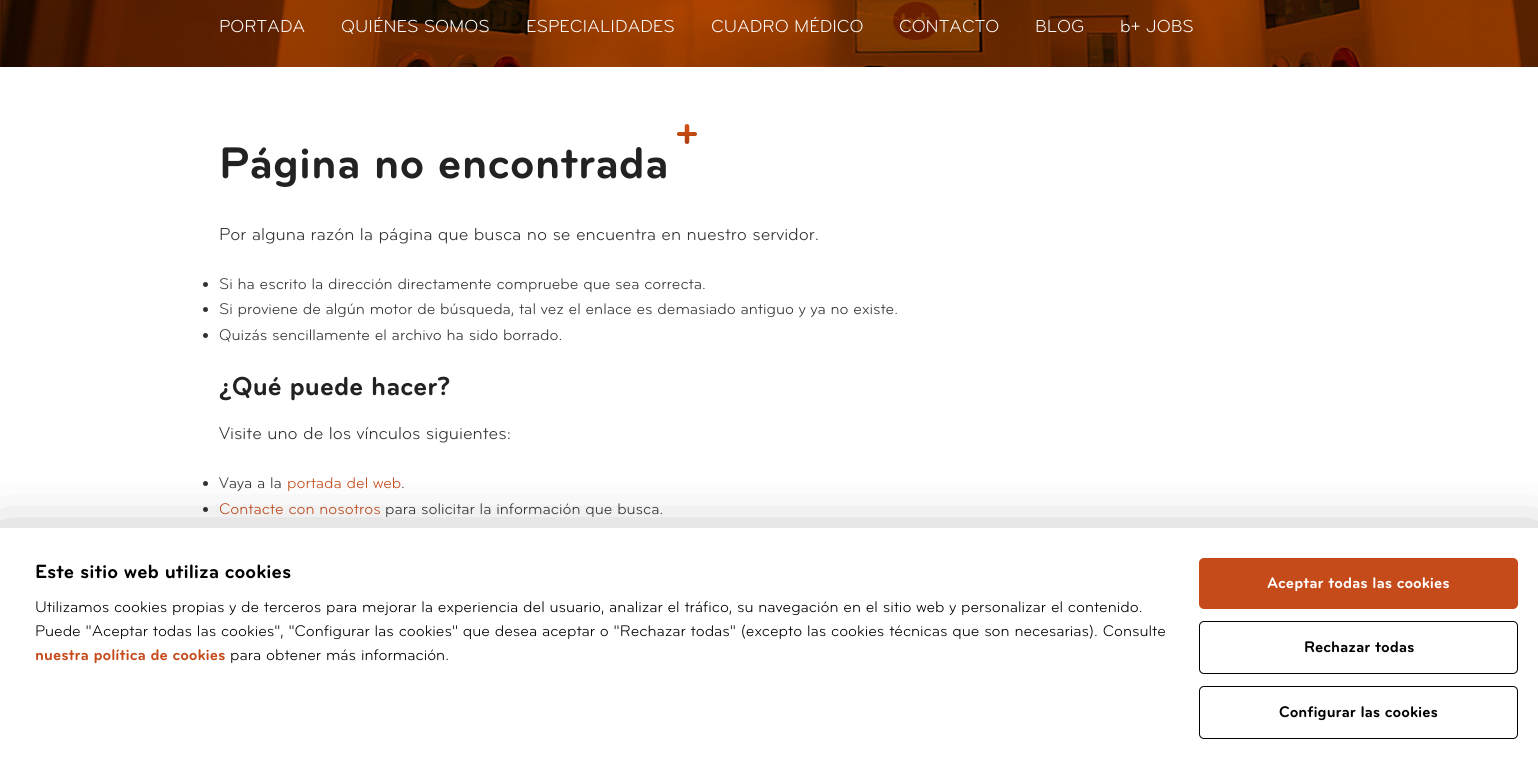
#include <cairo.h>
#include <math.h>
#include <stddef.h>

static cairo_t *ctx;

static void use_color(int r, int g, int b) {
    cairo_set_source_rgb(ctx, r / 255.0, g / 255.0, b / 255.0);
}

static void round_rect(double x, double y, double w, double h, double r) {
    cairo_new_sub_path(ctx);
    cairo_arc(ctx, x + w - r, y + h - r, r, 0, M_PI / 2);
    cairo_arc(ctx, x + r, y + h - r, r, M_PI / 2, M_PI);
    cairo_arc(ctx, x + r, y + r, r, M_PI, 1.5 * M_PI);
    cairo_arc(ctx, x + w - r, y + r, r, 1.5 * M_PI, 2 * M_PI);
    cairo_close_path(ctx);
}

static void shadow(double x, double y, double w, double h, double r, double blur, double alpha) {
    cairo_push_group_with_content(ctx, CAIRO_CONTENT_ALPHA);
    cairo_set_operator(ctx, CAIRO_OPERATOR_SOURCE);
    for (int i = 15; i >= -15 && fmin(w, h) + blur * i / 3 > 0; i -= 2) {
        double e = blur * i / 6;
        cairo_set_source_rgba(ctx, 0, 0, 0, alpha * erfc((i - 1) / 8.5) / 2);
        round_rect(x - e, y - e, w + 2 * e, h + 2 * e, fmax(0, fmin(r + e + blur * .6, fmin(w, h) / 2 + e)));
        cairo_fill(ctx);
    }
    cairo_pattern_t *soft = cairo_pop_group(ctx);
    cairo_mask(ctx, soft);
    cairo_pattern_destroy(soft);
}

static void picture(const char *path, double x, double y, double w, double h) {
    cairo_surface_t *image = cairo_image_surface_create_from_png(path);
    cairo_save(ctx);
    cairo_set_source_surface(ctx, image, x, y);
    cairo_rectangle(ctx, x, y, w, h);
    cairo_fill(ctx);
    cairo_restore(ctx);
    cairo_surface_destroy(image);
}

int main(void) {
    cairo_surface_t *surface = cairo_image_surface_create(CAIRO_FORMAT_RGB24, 1538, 781);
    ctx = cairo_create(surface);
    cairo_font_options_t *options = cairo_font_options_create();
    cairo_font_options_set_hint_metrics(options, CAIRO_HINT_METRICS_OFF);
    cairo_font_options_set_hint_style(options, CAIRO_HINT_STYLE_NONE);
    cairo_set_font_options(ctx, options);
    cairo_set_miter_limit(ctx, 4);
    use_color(255, 255, 255);
    cairo_paint(ctx);
    picture("img1.png", 0, 0, 1538, 67);
    cairo_select_font_face(ctx, "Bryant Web", CAIRO_FONT_SLANT_NORMAL, CAIRO_FONT_WEIGHT_NORMAL);
    cairo_set_font_size(ctx, 18);
    use_color(255, 255, 255);
    cairo_move_to(ctx, 219, 32);
    cairo_show_text(ctx, "PORTADA");
    cairo_move_to(ctx, 341, 32);
    cairo_show_text(ctx, "QUIÉNES SOMOS");
    cairo_move_to(ctx, 526, 32);
    cairo_show_text(ctx, "ESPECIALIDADES");
    cairo_move_to(ctx, 711, 32);
    cairo_show_text(ctx, "CUADRO MÉDICO");
    cairo_move_to(ctx, 899, 32);
    cairo_show_text(ctx, "CONTACTO");
    cairo_move_to(ctx, 1035, 32);
    cairo_show_text(ctx, "BLOG");
    cairo_move_to(ctx, 1120, 32);
    cairo_show_text(ctx, "b+ JOBS");
    picture("img2.png", 677, 124, 20, 20);
    cairo_select_font_face(ctx, "Bryant Web", CAIRO_FONT_SLANT_NORMAL, CAIRO_FONT_WEIGHT_BOLD);
    cairo_set_font_size(ctx, 46);
    use_color(34, 34, 34);
    cairo_move_to(ctx, 219, 178);
    cairo_show_text(ctx, "Página no encontrada");
    cairo_select_font_face(ctx, "Bryant Web", CAIRO_FONT_SLANT_NORMAL, CAIRO_FONT_WEIGHT_NORMAL);
    cairo_set_font_size(ctx, 18);
    use_color(51, 51, 51);
    cairo_move_to(ctx, 219, 240);
    cairo_show_text(ctx, "Por alguna razón la página que busca no se encuentra en nuestro servidor.");
    cairo_new_path(ctx);
    cairo_arc(ctx, 205.5, 284.5, 2.5, 0, 2 * M_PI);
    cairo_fill(ctx);
    cairo_set_font_size(ctx, 16);
    cairo_move_to(ctx, 219, 289);
    cairo_show_text(ctx, "Si ha escrito la dirección directamente compruebe que sea correcta.");
    cairo_new_path(ctx);
    cairo_arc(ctx, 205.5, 309.5, 2.5, 0, 2 * M_PI);
    cairo_fill(ctx);
    cairo_move_to(ctx, 219, 314);
    cairo_show_text(ctx, "Si proviene de algún motor de búsqueda, tal vez el enlace es demasiado antiguo y ya no existe.");
    cairo_new_path(ctx);
    cairo_arc(ctx, 205.5, 335.5, 2.5, 0, 2 * M_PI);
    cairo_fill(ctx);
    cairo_move_to(ctx, 219, 340);
    cairo_show_text(ctx, "Quizás sencillamente el archivo ha sido borrado.");
    cairo_select_font_face(ctx, "Bryant Web", CAIRO_FONT_SLANT_NORMAL, CAIRO_FONT_WEIGHT_BOLD);
    cairo_set_font_size(ctx, 27);
    use_color(34, 34, 34);
    cairo_move_to(ctx, 219, 395);
    cairo_show_text(ctx, "¿Qué puede hacer?");
    cairo_select_font_face(ctx, "Bryant Web", CAIRO_FONT_SLANT_NORMAL, CAIRO_FONT_WEIGHT_NORMAL);
    cairo_set_font_size(ctx, 18);
    use_color(51, 51, 51);
    cairo_move_to(ctx, 219, 439);
    cairo_show_text(ctx, "Visite uno de los vínculos siguientes:");
    cairo_new_path(ctx);
    cairo_arc(ctx, 205.5, 483.5, 2.5, 0, 2 * M_PI);
    cairo_fill(ctx);
    cairo_set_font_size(ctx, 16);
    cairo_move_to(ctx, 219, 488);
    cairo_show_text(ctx, "Vaya a la");
    use_color(198, 75, 26);
    cairo_move_to(ctx, 287, 488);
    cairo_show_text(ctx, "portada del web");
    use_color(51, 51, 51);
    cairo_move_to(ctx, 401, 488);
    cairo_show_text(ctx, ".");
    cairo_new_path(ctx);
    cairo_arc(ctx, 205.5, 509.5, 2.5, 0, 2 * M_PI);
    cairo_fill(ctx);
    use_color(198, 75, 26);
    cairo_move_to(ctx, 219, 514);
    cairo_show_text(ctx, "Contacte con nosotros");
    use_color(51, 51, 51);
    cairo_move_to(ctx, 385, 514);
    cairo_show_text(ctx, "para solicitar la información que busca.");
    use_color(0, 0, 0);
    shadow(0, 558, 1538, 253, 0, 35, 0.6);
    use_color(255, 255, 255);
    cairo_rectangle(ctx, 0, 528, 1538, 253);
    cairo_fill(ctx);
    cairo_select_font_face(ctx, "Bryant Web", CAIRO_FONT_SLANT_NORMAL, CAIRO_FONT_WEIGHT_BOLD);
    cairo_set_font_size(ctx, 20);
    use_color(0, 0, 0);
    cairo_move_to(ctx, 35, 578);
    cairo_show_text(ctx, "Este sitio web utiliza cookies");
    cairo_select_font_face(ctx, "Bryant Web", CAIRO_FONT_SLANT_NORMAL, CAIRO_FONT_WEIGHT_NORMAL);
    cairo_set_font_size(ctx, 16);
    cairo_move_to(ctx, 35, 612);
    cairo_show_text(ctx, "Utilizamos cookies propias y de terceros para mejorar la experiencia del usuario, analizar el tráfico, su navegación en el sitio web y personalizar el contenido.");
    cairo_move_to(ctx, 35, 636);
    cairo_show_text(ctx, "Puede \"Aceptar todas las cookies\", \"Configurar las cookies\" que desea aceptar o \"Rechazar todas\" (excepto las cookies técnicas que son necesarias). Consulte");
    cairo_select_font_face(ctx, "Bryant Web", CAIRO_FONT_SLANT_NORMAL, CAIRO_FONT_WEIGHT_BOLD);
    use_color(198, 75, 26);
    cairo_move_to(ctx, 35, 660);
    cairo_show_text(ctx, "nuestra política de cookies");
    cairo_select_font_face(ctx, "Bryant Web", CAIRO_FONT_SLANT_NORMAL, CAIRO_FONT_WEIGHT_NORMAL);
    use_color(0, 0, 0);
    cairo_move_to(ctx, 230, 660);
    cairo_show_text(ctx, "para obtener más información.");
    use_color(198, 75, 26);
    round_rect(1199, 558, 319, 51, 5);
    cairo_fill(ctx);
    cairo_select_font_face(ctx, "Bryant Web", CAIRO_FONT_SLANT_NORMAL, CAIRO_FONT_WEIGHT_BOLD);
    use_color(255, 255, 255);
    cairo_move_to(ctx, 1267, 588);
    cairo_show_text(ctx, "Aceptar todas las cookies");
    round_rect(1199.5, 621.5, 318, 52, 4.5);
    use_color(0, 0, 0);
    cairo_set_line_width(ctx, 1);
    cairo_stroke(ctx);
    cairo_move_to(ctx, 1304, 652);
    cairo_show_text(ctx, "Rechazar todas");
    round_rect(1199.5, 686.5, 318, 52, 4.5);
    cairo_stroke(ctx);
    cairo_move_to(ctx, 1279, 717);
    cairo_show_text(ctx, "Configurar las cookies");
    cairo_surface_write_to_png(surface, "result.png");
    cairo_font_options_destroy(options);
    cairo_destroy(ctx);
    cairo_surface_destroy(surface);
    return 0;
}
